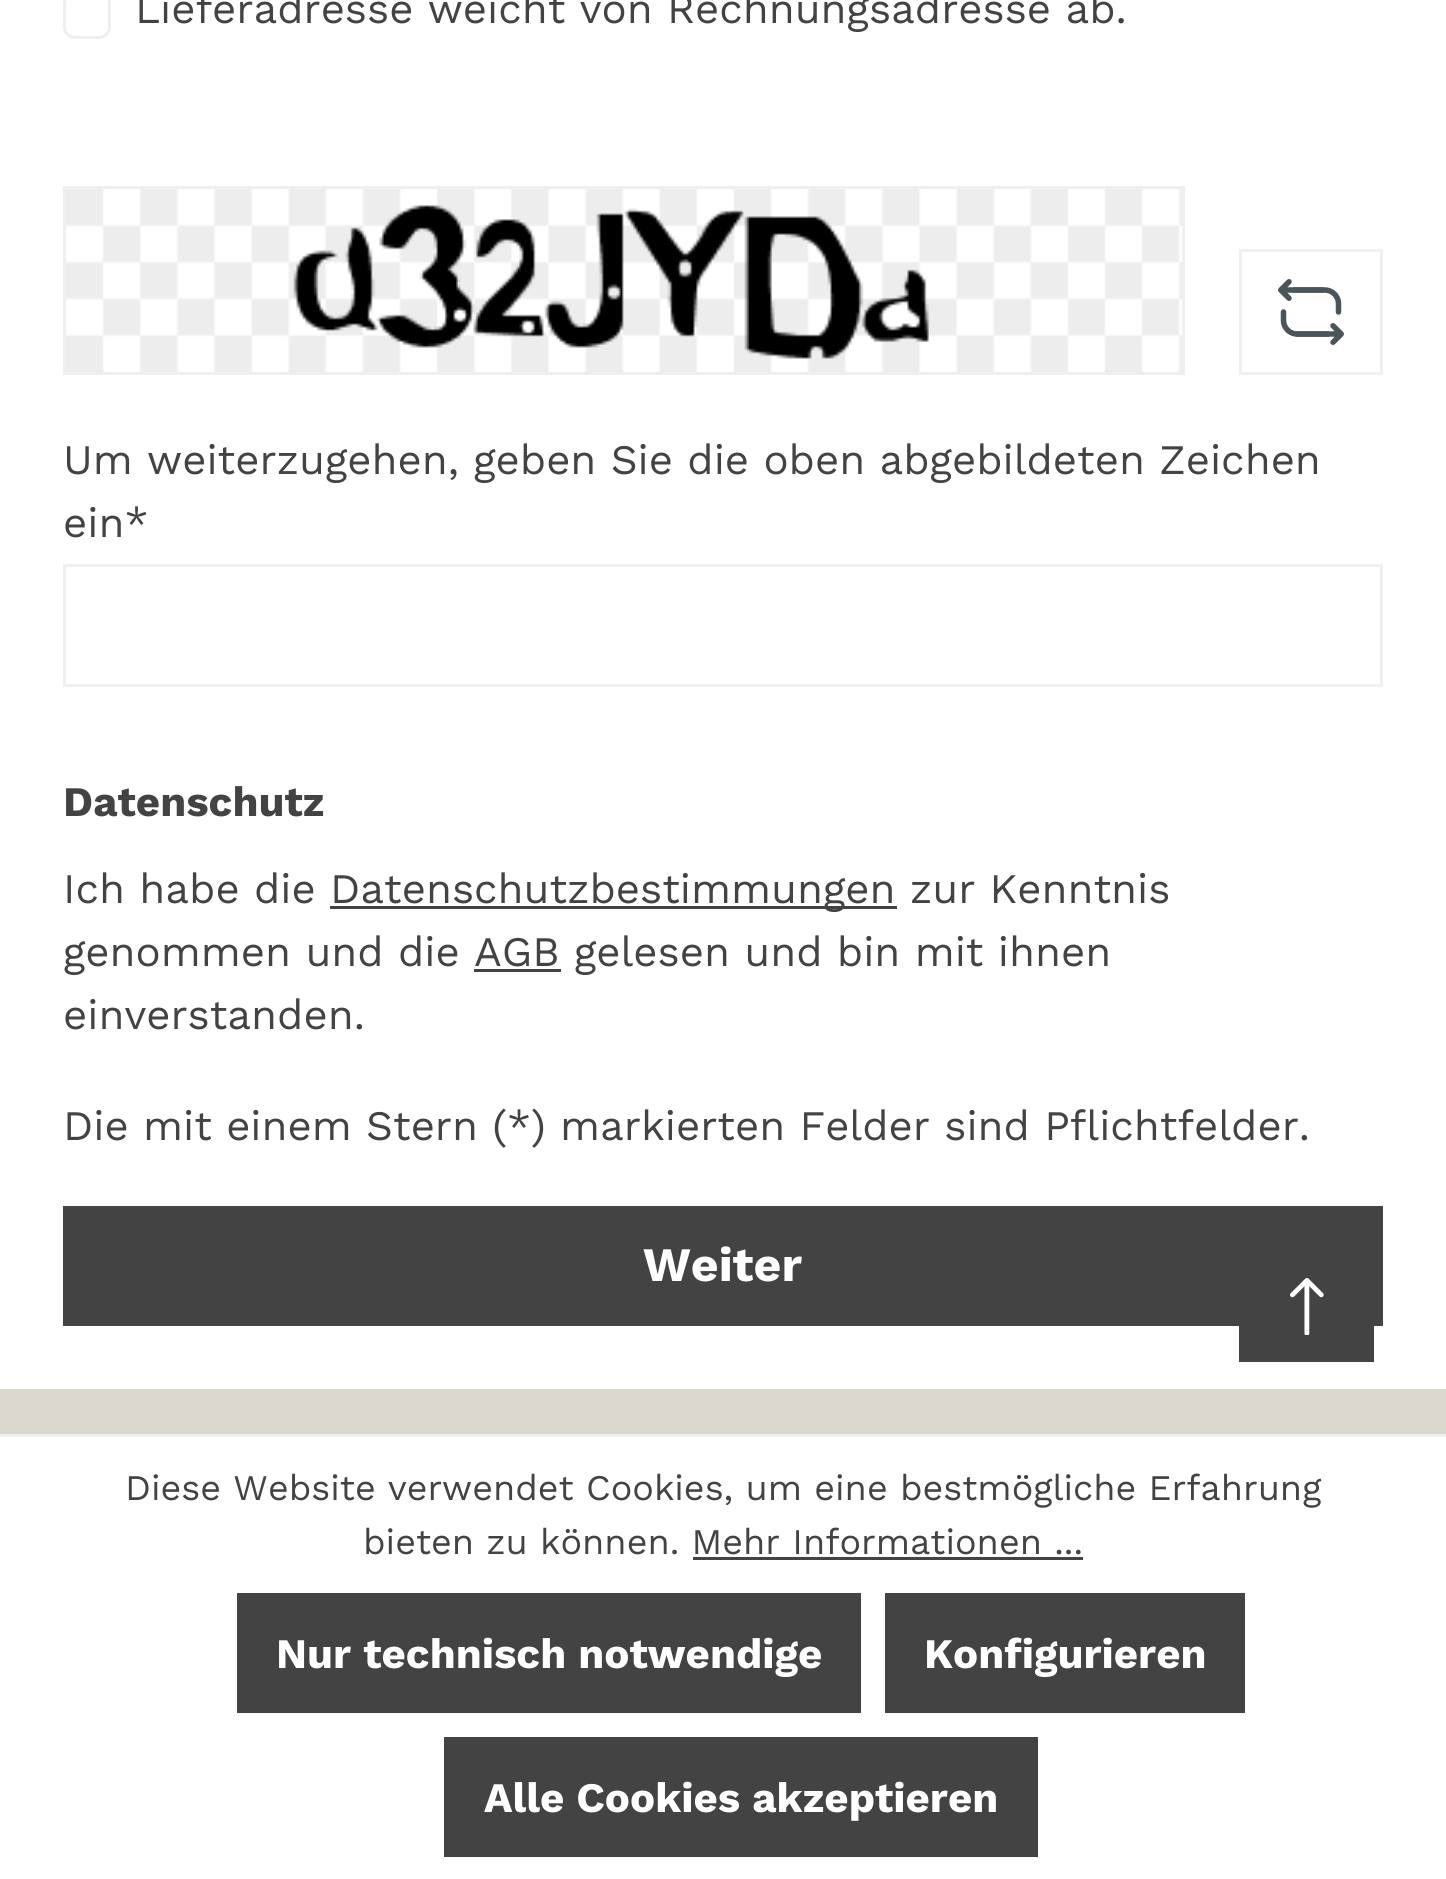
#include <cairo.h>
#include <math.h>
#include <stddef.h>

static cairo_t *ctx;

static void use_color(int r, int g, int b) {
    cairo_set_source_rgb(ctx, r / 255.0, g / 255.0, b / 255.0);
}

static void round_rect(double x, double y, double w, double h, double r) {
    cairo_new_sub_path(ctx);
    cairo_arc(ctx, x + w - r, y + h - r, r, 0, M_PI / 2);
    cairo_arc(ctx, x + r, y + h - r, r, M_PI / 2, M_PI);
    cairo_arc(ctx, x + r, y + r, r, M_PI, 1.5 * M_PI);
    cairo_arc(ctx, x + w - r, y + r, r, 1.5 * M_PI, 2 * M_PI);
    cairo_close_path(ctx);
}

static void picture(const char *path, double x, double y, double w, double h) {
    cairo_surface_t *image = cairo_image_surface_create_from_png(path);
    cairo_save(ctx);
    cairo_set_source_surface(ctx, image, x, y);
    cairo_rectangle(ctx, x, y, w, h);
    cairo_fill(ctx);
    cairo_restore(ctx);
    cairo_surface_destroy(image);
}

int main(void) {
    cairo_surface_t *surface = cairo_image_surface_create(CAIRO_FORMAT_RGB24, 1446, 1879);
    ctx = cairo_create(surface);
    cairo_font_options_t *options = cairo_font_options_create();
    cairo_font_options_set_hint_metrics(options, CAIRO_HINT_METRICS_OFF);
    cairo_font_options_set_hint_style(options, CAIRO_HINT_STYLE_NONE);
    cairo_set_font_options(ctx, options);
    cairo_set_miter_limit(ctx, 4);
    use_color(255, 255, 255);
    cairo_paint(ctx);
    round_rect(64.5, -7.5, 45, 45, 10.5);
    use_color(239, 239, 239);
    cairo_set_line_width(ctx, 3);
    cairo_stroke(ctx);
    cairo_select_font_face(ctx, "Work Sans", CAIRO_FONT_SLANT_NORMAL, CAIRO_FONT_WEIGHT_NORMAL);
    cairo_set_font_size(ctx, 42);
    use_color(67, 67, 67);
    cairo_move_to(ctx, 135, 23);
    cairo_show_text(ctx, "Lieferadresse weicht von Rechnungsadresse ab.");
    cairo_rectangle(ctx, 64.5, 187.5, 1119, 186);
    use_color(239, 239, 239);
    cairo_stroke(ctx);
    picture("img1.png", 66, 189, 1116, 183);
    cairo_rectangle(ctx, 1240.5, 250.5, 141, 123);
    cairo_stroke(ctx);
    picture("img2.png", 1278, 279, 66, 66);
    use_color(67, 67, 67);
    cairo_move_to(ctx, 63, 474);
    cairo_show_text(ctx, "Um weiterzugehen, geben Sie die oben abgebildeten Zeichen");
    cairo_move_to(ctx, 63, 537);
    cairo_show_text(ctx, "ein*");
    cairo_rectangle(ctx, 64.5, 565.5, 1317, 120);
    use_color(239, 239, 239);
    cairo_stroke(ctx);
    cairo_select_font_face(ctx, "Work Sans", CAIRO_FONT_SLANT_NORMAL, CAIRO_FONT_WEIGHT_BOLD);
    use_color(67, 67, 67);
    cairo_move_to(ctx, 63, 816);
    cairo_show_text(ctx, "Datenschutz");
    cairo_select_font_face(ctx, "Work Sans", CAIRO_FONT_SLANT_NORMAL, CAIRO_FONT_WEIGHT_NORMAL);
    cairo_move_to(ctx, 63, 903);
    cairo_show_text(ctx, "Ich habe die");
    cairo_rectangle(ctx, 330, 906, 567, 3);
    cairo_fill(ctx);
    cairo_move_to(ctx, 330, 903);
    cairo_show_text(ctx, "Datenschutzbestimmungen zur Kenntnis");
    cairo_move_to(ctx, 63, 966);
    cairo_show_text(ctx, "genommen und die AGB gelesen und bin mit ihnen");
    cairo_rectangle(ctx, 474, 969, 87, 3);
    cairo_fill(ctx);
    cairo_move_to(ctx, 63, 1029);
    cairo_show_text(ctx, "einverstanden.");
    cairo_move_to(ctx, 63, 1140);
    cairo_show_text(ctx, "Die mit einem Stern (*) markierten Felder sind Pflichtfelder.");
    cairo_rectangle(ctx, 63, 1206, 1320, 120);
    cairo_fill(ctx);
    cairo_select_font_face(ctx, "Work Sans", CAIRO_FONT_SLANT_NORMAL, CAIRO_FONT_WEIGHT_BOLD);
    cairo_set_font_size(ctx, 48);
    use_color(255, 255, 255);
    cairo_move_to(ctx, 643, 1281);
    cairo_show_text(ctx, "Weiter");
    use_color(67, 67, 67);
    cairo_rectangle(ctx, 1239, 1326, 135, 36);
    cairo_fill(ctx);
    picture("img3.png", 1290, 1278, 34, 57);
    use_color(218, 216, 207);
    cairo_rectangle(ctx, 0, 1389, 1446, 45);
    cairo_fill(ctx);
    use_color(239, 239, 239);
    cairo_rectangle(ctx, 0, 1434, 1446, 3);
    cairo_fill(ctx);
    cairo_select_font_face(ctx, "Work Sans", CAIRO_FONT_SLANT_NORMAL, CAIRO_FONT_WEIGHT_NORMAL);
    cairo_set_font_size(ctx, 36);
    use_color(67, 67, 67);
    cairo_move_to(ctx, 125, 1500);
    cairo_show_text(ctx, "Diese Website verwendet Cookies, um eine bestmögliche Erfahrung");
    cairo_move_to(ctx, 363, 1554);
    cairo_show_text(ctx, "bieten zu können. Mehr Informationen ...");
    cairo_rectangle(ctx, 693, 1557, 390, 3);
    cairo_fill(ctx);
    cairo_rectangle(ctx, 237, 1593, 624, 120);
    cairo_fill(ctx);
    cairo_select_font_face(ctx, "Work Sans", CAIRO_FONT_SLANT_NORMAL, CAIRO_FONT_WEIGHT_BOLD);
    cairo_set_font_size(ctx, 42);
    use_color(255, 255, 255);
    cairo_move_to(ctx, 276, 1668);
    cairo_show_text(ctx, "Nur technisch notwendige");
    use_color(67, 67, 67);
    cairo_rectangle(ctx, 885, 1593, 360, 120);
    cairo_fill(ctx);
    use_color(255, 255, 255);
    cairo_move_to(ctx, 924, 1668);
    cairo_show_text(ctx, "Konfigurieren");
    use_color(67, 67, 67);
    cairo_rectangle(ctx, 444, 1737, 594, 120);
    cairo_fill(ctx);
    use_color(255, 255, 255);
    cairo_move_to(ctx, 484, 1812);
    cairo_show_text(ctx, "Alle Cookies akzeptieren");
    cairo_surface_write_to_png(surface, "result.png");
    cairo_font_options_destroy(options);
    cairo_destroy(ctx);
    cairo_surface_destroy(surface);
    return 0;
}
